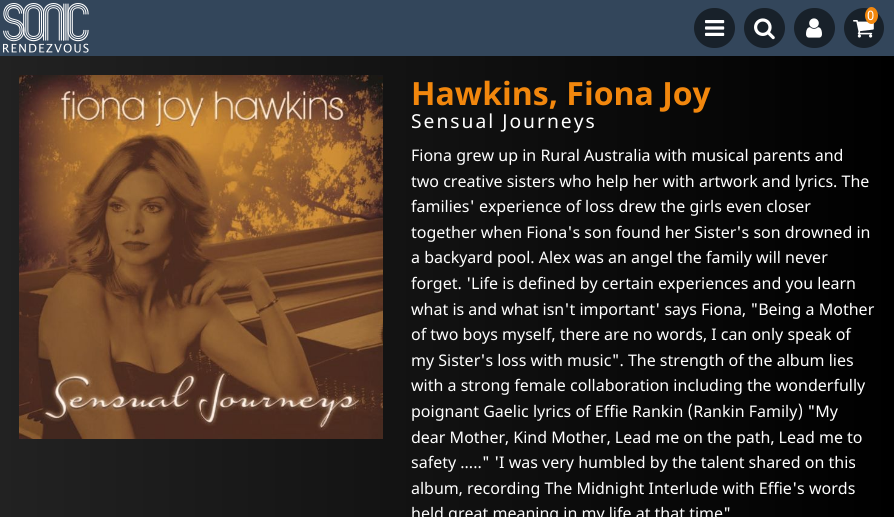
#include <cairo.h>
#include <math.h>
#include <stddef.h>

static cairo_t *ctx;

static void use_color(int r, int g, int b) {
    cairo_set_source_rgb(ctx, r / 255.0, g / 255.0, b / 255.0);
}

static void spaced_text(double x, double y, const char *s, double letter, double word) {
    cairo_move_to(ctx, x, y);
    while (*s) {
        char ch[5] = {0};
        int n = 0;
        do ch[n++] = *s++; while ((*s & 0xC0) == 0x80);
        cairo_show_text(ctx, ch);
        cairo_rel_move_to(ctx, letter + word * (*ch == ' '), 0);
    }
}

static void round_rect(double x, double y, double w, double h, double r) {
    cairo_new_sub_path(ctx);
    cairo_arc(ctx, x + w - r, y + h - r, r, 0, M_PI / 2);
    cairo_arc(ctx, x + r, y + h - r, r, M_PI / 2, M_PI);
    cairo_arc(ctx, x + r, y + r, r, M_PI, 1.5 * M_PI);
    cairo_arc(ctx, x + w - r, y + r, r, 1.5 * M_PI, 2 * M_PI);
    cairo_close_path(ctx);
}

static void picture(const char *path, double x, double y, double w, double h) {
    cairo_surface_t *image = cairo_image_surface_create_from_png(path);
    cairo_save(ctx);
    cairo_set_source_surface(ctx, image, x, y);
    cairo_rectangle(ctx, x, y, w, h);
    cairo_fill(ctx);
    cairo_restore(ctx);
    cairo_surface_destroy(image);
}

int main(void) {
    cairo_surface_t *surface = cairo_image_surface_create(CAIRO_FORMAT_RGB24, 894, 517);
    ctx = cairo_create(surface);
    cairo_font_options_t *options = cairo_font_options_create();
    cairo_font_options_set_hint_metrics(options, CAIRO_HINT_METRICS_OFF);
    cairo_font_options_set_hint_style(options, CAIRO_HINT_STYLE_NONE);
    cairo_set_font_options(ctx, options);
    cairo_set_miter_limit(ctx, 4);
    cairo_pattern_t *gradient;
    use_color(255, 255, 255);
    cairo_paint(ctx);
    gradient = cairo_pattern_create_linear(0, 259, 894, 259);
    cairo_pattern_add_color_stop_rgba(gradient, 0, 0.133, 0.133, 0.133, 1);
    cairo_pattern_add_color_stop_rgba(gradient, 1, 0, 0, 0, 1);
    cairo_set_source(ctx, gradient);
    cairo_pattern_destroy(gradient);
    cairo_rectangle(ctx, 0, 56, 894, 461);
    cairo_fill(ctx);
    use_color(51, 70, 91);
    cairo_rectangle(ctx, 0, 0, 894, 56);
    cairo_fill(ctx);
    picture("img1.png", 3, 3, 86, 50);
    use_color(24, 33, 42);
    round_rect(694, 8, 41, 40, 20);
    cairo_fill(ctx);
    picture("img2.png", 705, 20, 20, 16);
    round_rect(744, 8, 41, 40, 20);
    cairo_fill(ctx);
    picture("img3.png", 754, 18, 21, 22);
    round_rect(794, 8, 41, 40, 20);
    cairo_fill(ctx);
    picture("img4.png", 806, 18, 16, 20);
    cairo_arc(ctx, 864, 28, 20, 0, 2 * M_PI);
    cairo_fill(ctx);
    picture("img5.png", 853, 20, 21, 18);
    use_color(242, 135, 13);
    cairo_new_path(ctx);
    cairo_move_to(ctx, 871.5, 7);
    cairo_curve_to(ctx, 875, 7, 878, 11, 878, 15.5);
    cairo_curve_to(ctx, 878, 20, 875, 24, 871.5, 24);
    cairo_curve_to(ctx, 868, 24, 865, 20, 865, 15.5);
    cairo_curve_to(ctx, 865, 11, 868, 7, 871.5, 7);
    cairo_close_path(ctx);
    cairo_fill(ctx);
    cairo_select_font_face(ctx, "Noto Sans", CAIRO_FONT_SLANT_NORMAL, CAIRO_FONT_WEIGHT_NORMAL);
    cairo_set_font_size(ctx, 13);
    use_color(255, 255, 255);
    spaced_text(867, 20, "0", 1, 0);
    picture("img6.png", 19, 75, 364, 364);
    cairo_select_font_face(ctx, "Noto Sans", CAIRO_FONT_SLANT_NORMAL, CAIRO_FONT_WEIGHT_BOLD);
    cairo_set_font_size(ctx, 32);
    use_color(242, 135, 13);
    cairo_move_to(ctx, 411, 105);
    cairo_show_text(ctx, "Hawkins, Fiona Joy");
    cairo_select_font_face(ctx, "Noto Sans", CAIRO_FONT_SLANT_NORMAL, CAIRO_FONT_WEIGHT_NORMAL);
    cairo_set_font_size(ctx, 19.25);
    use_color(255, 255, 255);
    spaced_text(411, 128, "Sensual Journeys", 2, 0);
    cairo_set_font_size(ctx, 16);
    cairo_move_to(ctx, 411, 161);
    cairo_show_text(ctx, "Fiona grew up in Rural Australia with musical parents and");
    cairo_move_to(ctx, 411, 187);
    cairo_show_text(ctx, "two creative sisters who help her with artwork and lyrics. The");
    cairo_move_to(ctx, 411, 212);
    cairo_show_text(ctx, "families' experience of loss drew the girls even closer");
    cairo_move_to(ctx, 411, 238);
    cairo_show_text(ctx, "together when Fiona's son found her Sister's son drowned in");
    cairo_move_to(ctx, 411, 263);
    cairo_show_text(ctx, "a backyard pool. Alex was an angel the family will never");
    cairo_move_to(ctx, 411, 289);
    cairo_show_text(ctx, "forget. 'Life is defined by certain experiences and you learn");
    cairo_move_to(ctx, 411, 315);
    cairo_show_text(ctx, "what is and what isn't important' says Fiona, \"Being a Mother");
    cairo_move_to(ctx, 411, 340);
    cairo_show_text(ctx, "of two boys myself, there are no words, I can only speak of");
    cairo_move_to(ctx, 411, 366);
    cairo_show_text(ctx, "my Sister's loss with music\". The strength of the album lies");
    cairo_move_to(ctx, 411, 391);
    cairo_show_text(ctx, "with a strong female collaboration including the wonderfully");
    cairo_move_to(ctx, 411, 417);
    cairo_show_text(ctx, "poignant Gaelic lyrics of Effie Rankin (Rankin Family) \"My");
    cairo_move_to(ctx, 411, 443);
    cairo_show_text(ctx, "dear Mother, Kind Mother, Lead me on the path, Lead me to");
    cairo_move_to(ctx, 411, 468);
    cairo_show_text(ctx, "safety .....\" 'I was very humbled by the talent shared on this");
    cairo_move_to(ctx, 411, 494);
    cairo_show_text(ctx, "album, recording The Midnight Interlude with Effie's words");
    cairo_move_to(ctx, 411, 519);
    cairo_show_text(ctx, "held great meaning in my life at that time\"");
    cairo_surface_write_to_png(surface, "result.png");
    cairo_font_options_destroy(options);
    cairo_destroy(ctx);
    cairo_surface_destroy(surface);
    return 0;
}
